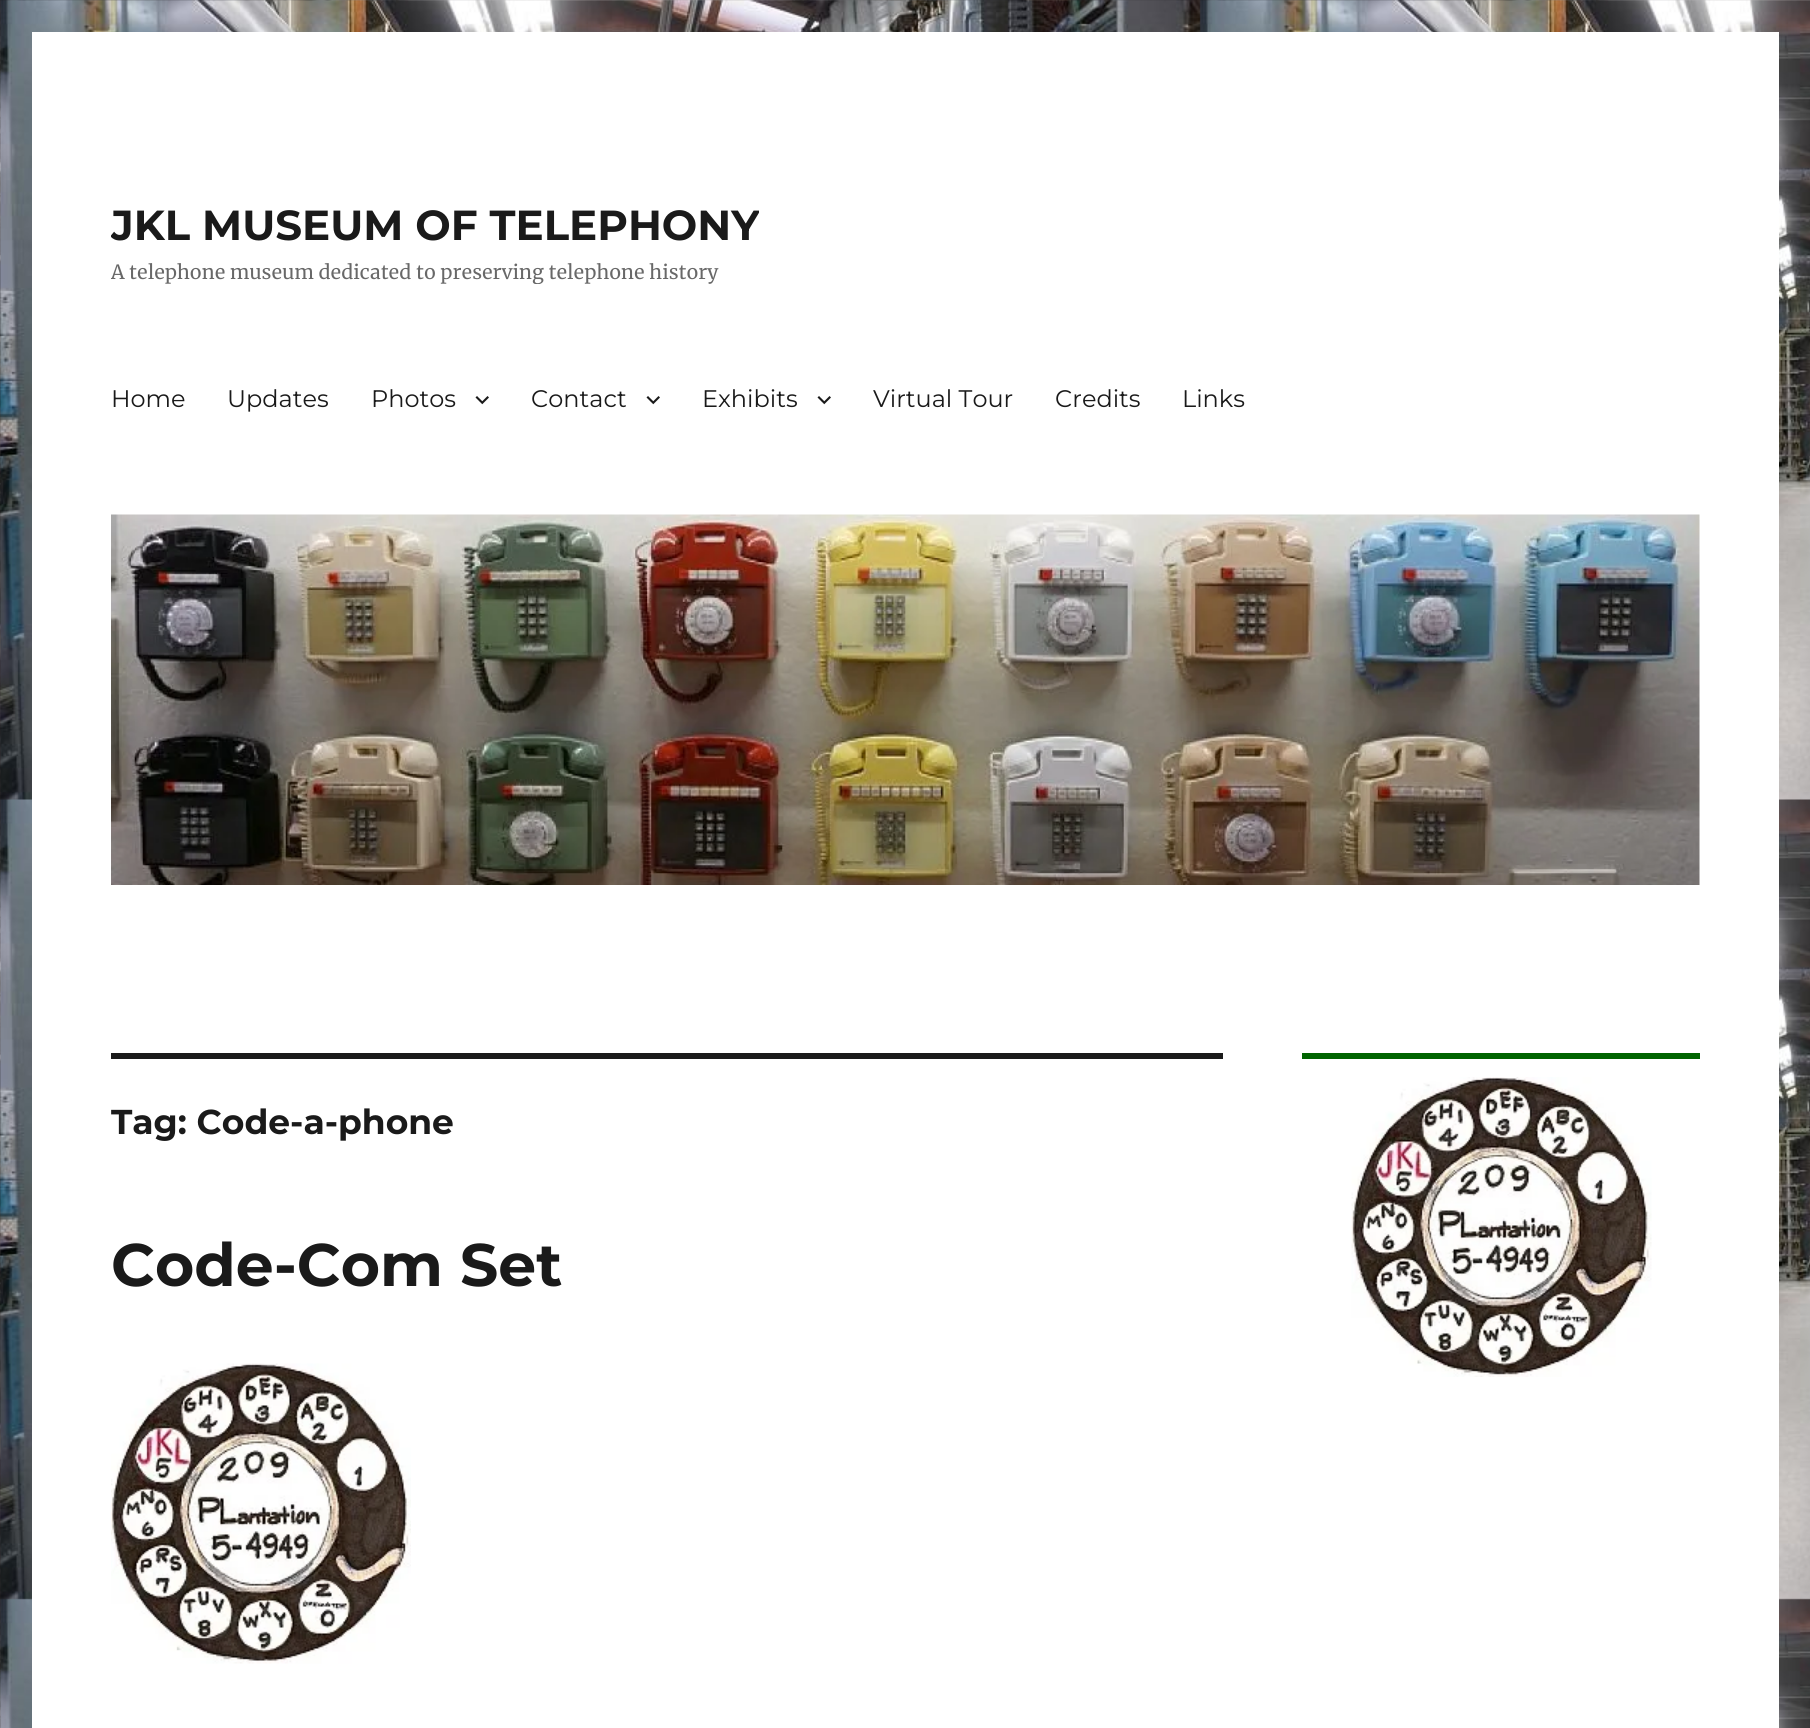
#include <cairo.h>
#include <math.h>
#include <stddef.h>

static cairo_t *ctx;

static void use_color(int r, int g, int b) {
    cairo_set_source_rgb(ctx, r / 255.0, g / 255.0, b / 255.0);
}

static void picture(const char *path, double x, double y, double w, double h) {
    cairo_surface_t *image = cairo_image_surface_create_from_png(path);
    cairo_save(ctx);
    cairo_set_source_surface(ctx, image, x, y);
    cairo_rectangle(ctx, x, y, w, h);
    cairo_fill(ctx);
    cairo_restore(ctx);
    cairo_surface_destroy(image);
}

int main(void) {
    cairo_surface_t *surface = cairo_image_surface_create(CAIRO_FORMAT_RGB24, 1810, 1728);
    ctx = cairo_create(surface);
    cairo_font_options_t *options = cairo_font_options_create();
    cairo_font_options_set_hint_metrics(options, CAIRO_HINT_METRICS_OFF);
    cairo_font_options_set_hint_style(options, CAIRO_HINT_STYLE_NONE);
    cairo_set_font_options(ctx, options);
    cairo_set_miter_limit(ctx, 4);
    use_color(255, 255, 255);
    cairo_paint(ctx);
    picture("img1.png", 0, 0, 1810, 1728);
    use_color(255, 255, 255);
    cairo_rectangle(ctx, 32, 32, 1747, 1696);
    cairo_fill(ctx);
    cairo_save(ctx);
    cairo_rectangle(ctx, 111, 200, 648, 84);
    cairo_clip(ctx);
    cairo_select_font_face(ctx, "Montserrat Thin", CAIRO_FONT_SLANT_NORMAL, CAIRO_FONT_WEIGHT_NORMAL);
    cairo_set_font_size(ctx, 42);
    use_color(26, 26, 26);
    cairo_move_to(ctx, 111, 240);
    cairo_show_text(ctx, "JKL MUSEUM OF TELEPHONY");
    cairo_select_font_face(ctx, "Merriweather", CAIRO_FONT_SLANT_NORMAL, CAIRO_FONT_WEIGHT_NORMAL);
    cairo_set_font_size(ctx, 19.5);
    use_color(104, 104, 104);
    cairo_move_to(ctx, 111, 279);
    cairo_show_text(ctx, "A telephone museum dedicated to preserving telephone history");
    cairo_restore(ctx);
    cairo_select_font_face(ctx, "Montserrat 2 Thin", CAIRO_FONT_SLANT_NORMAL, CAIRO_FONT_WEIGHT_NORMAL);
    cairo_set_font_size(ctx, 24);
    use_color(26, 26, 26);
    cairo_move_to(ctx, 111, 407);
    cairo_show_text(ctx, "Home");
    cairo_move_to(ctx, 227, 407);
    cairo_show_text(ctx, "Updates");
    cairo_move_to(ctx, 371, 407);
    cairo_show_text(ctx, "Photos");
    picture("img2.png", 475, 396, 14, 9);
    cairo_move_to(ctx, 531, 407);
    cairo_show_text(ctx, "Contact");
    picture("img2.png", 646, 396, 14, 9);
    cairo_move_to(ctx, 702, 407);
    cairo_show_text(ctx, "Exhibits");
    picture("img2.png", 817, 396, 14, 9);
    cairo_move_to(ctx, 873, 407);
    cairo_show_text(ctx, "Virtual Tour");
    cairo_move_to(ctx, 1055, 407);
    cairo_show_text(ctx, "Credits");
    cairo_move_to(ctx, 1182, 407);
    cairo_show_text(ctx, "Links");
    picture("img3.png", 111, 514, 1589, 371);
    cairo_rectangle(ctx, 111, 1053, 1112, 6);
    cairo_fill(ctx);
    cairo_select_font_face(ctx, "Montserrat Thin", CAIRO_FONT_SLANT_NORMAL, CAIRO_FONT_WEIGHT_NORMAL);
    cairo_set_font_size(ctx, 34.5);
    cairo_move_to(ctx, 111, 1134);
    cairo_show_text(ctx, "Tag: Code-a-phone");
    cairo_set_font_size(ctx, 60);
    cairo_move_to(ctx, 111, 1286);
    cairo_show_text(ctx, "Code-Com Set");
    picture("img4.png", 111, 1363, 300, 301);
    use_color(0, 100, 0);
    cairo_rectangle(ctx, 1302, 1053, 398, 6);
    cairo_fill(ctx);
    picture("img5.png", 1351, 1077, 301, 300);
    cairo_surface_write_to_png(surface, "result.png");
    cairo_font_options_destroy(options);
    cairo_destroy(ctx);
    cairo_surface_destroy(surface);
    return 0;
}
